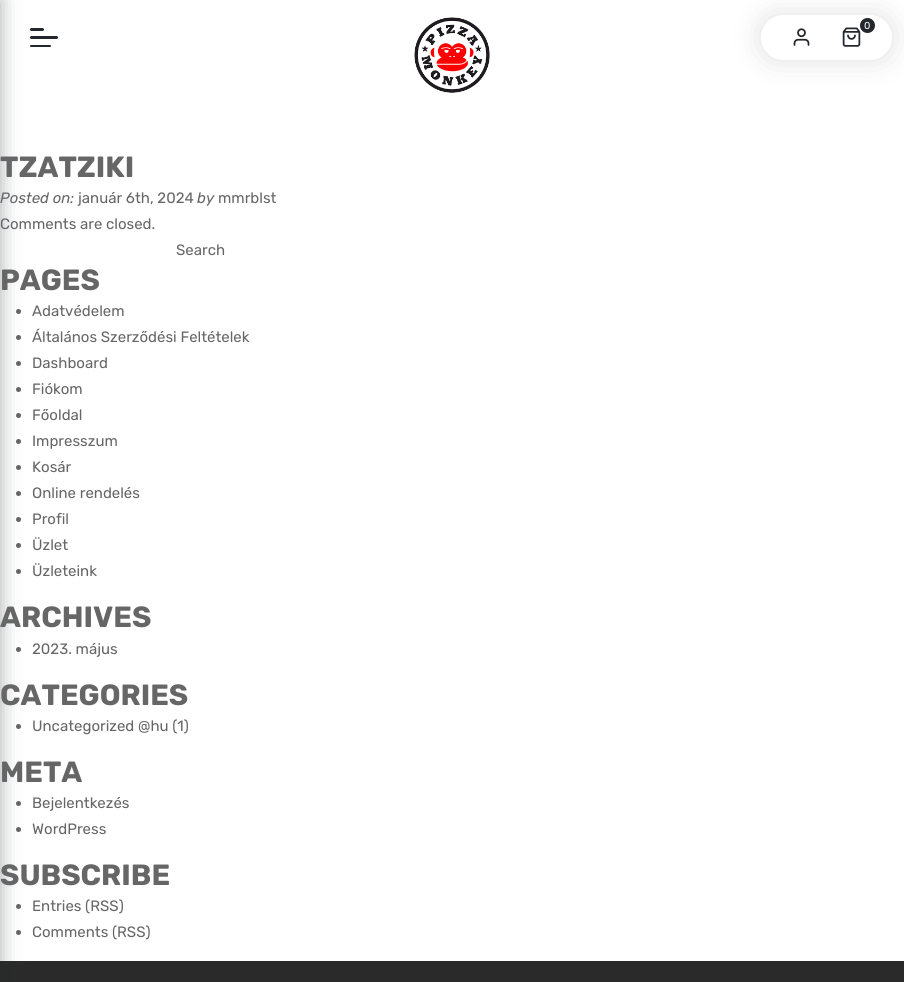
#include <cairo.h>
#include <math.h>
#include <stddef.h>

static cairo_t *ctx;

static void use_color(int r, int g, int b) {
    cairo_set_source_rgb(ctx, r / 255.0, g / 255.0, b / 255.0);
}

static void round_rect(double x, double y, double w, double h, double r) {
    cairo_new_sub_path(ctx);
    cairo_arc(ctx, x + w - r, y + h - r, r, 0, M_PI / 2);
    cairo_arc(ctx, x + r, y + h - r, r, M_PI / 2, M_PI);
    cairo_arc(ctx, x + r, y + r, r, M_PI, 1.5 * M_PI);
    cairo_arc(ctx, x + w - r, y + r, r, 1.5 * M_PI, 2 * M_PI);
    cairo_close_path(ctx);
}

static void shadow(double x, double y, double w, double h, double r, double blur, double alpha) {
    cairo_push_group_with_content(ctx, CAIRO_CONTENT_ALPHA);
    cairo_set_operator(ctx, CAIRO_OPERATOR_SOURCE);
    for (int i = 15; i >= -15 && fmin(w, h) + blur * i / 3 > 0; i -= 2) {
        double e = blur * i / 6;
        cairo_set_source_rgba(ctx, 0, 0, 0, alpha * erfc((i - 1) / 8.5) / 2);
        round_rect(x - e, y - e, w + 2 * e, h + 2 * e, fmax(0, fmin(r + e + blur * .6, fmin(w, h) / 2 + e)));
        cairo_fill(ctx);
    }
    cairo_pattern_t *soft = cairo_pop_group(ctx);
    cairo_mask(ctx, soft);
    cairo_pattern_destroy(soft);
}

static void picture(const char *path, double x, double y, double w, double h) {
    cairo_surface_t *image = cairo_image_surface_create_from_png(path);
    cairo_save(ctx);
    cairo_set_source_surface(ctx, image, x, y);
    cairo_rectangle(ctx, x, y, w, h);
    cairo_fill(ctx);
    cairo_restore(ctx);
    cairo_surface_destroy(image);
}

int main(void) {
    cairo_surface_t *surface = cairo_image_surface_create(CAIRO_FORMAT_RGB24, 904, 982);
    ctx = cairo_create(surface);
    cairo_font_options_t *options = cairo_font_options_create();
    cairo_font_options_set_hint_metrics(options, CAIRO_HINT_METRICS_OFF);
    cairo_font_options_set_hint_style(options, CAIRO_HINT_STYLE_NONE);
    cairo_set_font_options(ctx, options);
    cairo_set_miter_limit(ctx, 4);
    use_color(255, 255, 255);
    cairo_paint(ctx);
    use_color(102, 102, 102);
    cairo_arc(ctx, 18.5, 311.5, 2.5, 0, 2 * M_PI);
    cairo_fill(ctx);
    cairo_arc(ctx, 18.5, 337.5, 2.5, 0, 2 * M_PI);
    cairo_fill(ctx);
    cairo_arc(ctx, 18.5, 363.5, 2.5, 0, 2 * M_PI);
    cairo_fill(ctx);
    cairo_arc(ctx, 18.5, 389.5, 2.5, 0, 2 * M_PI);
    cairo_fill(ctx);
    cairo_arc(ctx, 18.5, 415.5, 2.5, 0, 2 * M_PI);
    cairo_fill(ctx);
    cairo_arc(ctx, 18.5, 441.5, 2.5, 0, 2 * M_PI);
    cairo_fill(ctx);
    cairo_arc(ctx, 18.5, 467.5, 2.5, 0, 2 * M_PI);
    cairo_fill(ctx);
    cairo_arc(ctx, 18.5, 493.5, 2.5, 0, 2 * M_PI);
    cairo_fill(ctx);
    cairo_arc(ctx, 18.5, 519.5, 2.5, 0, 2 * M_PI);
    cairo_fill(ctx);
    cairo_arc(ctx, 18.5, 545.5, 2.5, 0, 2 * M_PI);
    cairo_fill(ctx);
    cairo_arc(ctx, 18.5, 571.5, 2.5, 0, 2 * M_PI);
    cairo_fill(ctx);
    cairo_arc(ctx, 18.5, 649.5, 2.5, 0, 2 * M_PI);
    cairo_fill(ctx);
    cairo_arc(ctx, 18.5, 726.5, 2.5, 0, 2 * M_PI);
    cairo_fill(ctx);
    cairo_arc(ctx, 18.5, 803.5, 2.5, 0, 2 * M_PI);
    cairo_fill(ctx);
    cairo_arc(ctx, 18.5, 829.5, 2.5, 0, 2 * M_PI);
    cairo_fill(ctx);
    cairo_arc(ctx, 18.5, 906.5, 2.5, 0, 2 * M_PI);
    cairo_fill(ctx);
    cairo_arc(ctx, 18.5, 932.5, 2.5, 0, 2 * M_PI);
    cairo_fill(ctx);
    use_color(42, 42, 42);
    cairo_rectangle(ctx, 0, 961, 904, 21);
    cairo_fill(ctx);
    use_color(34, 39, 45);
    shadow(-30, 0, 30, 982, 0, 10, 0.4);
    picture("img1.png", 414, 17, 76, 76);
    use_color(0, 0, 0);
    shadow(761, 15, 131, 45, 22.5, 15, 0.12);
    use_color(255, 255, 255);
    round_rect(761, 15, 131, 45, 22.5);
    cairo_fill(ctx);
    picture("img2.png", 842, 27, 19, 20);
    use_color(34, 39, 45);
    cairo_arc(ctx, 867.5, 25.5, 7.5, 0, 2 * M_PI);
    cairo_fill(ctx);
    cairo_select_font_face(ctx, "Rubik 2 Light", CAIRO_FONT_SLANT_NORMAL, CAIRO_FONT_WEIGHT_NORMAL);
    cairo_set_font_size(ctx, 10);
    use_color(255, 255, 255);
    cairo_move_to(ctx, 864, 29);
    cairo_show_text(ctx, "0");
    picture("img3.png", 793, 28, 17, 18);
    use_color(34, 39, 45);
    round_rect(30, 28, 14, 3, 1.5);
    cairo_fill(ctx);
    round_rect(30, 36, 28, 3, 1.5);
    cairo_fill(ctx);
    round_rect(30, 45, 21, 2, 1);
    cairo_fill(ctx);
    cairo_select_font_face(ctx, "Rubik Light", CAIRO_FONT_SLANT_NORMAL, CAIRO_FONT_WEIGHT_NORMAL);
    cairo_set_font_size(ctx, 29.25);
    use_color(102, 102, 102);
    cairo_move_to(ctx, 0, 177);
    cairo_show_text(ctx, "TZATZIKI");
    cairo_select_font_face(ctx, "Rubik Light", CAIRO_FONT_SLANT_ITALIC, CAIRO_FONT_WEIGHT_NORMAL);
    cairo_set_font_size(ctx, 15);
    cairo_move_to(ctx, 0, 203);
    cairo_show_text(ctx, "Posted on:");
    cairo_select_font_face(ctx, "Rubik 2 Light", CAIRO_FONT_SLANT_NORMAL, CAIRO_FONT_WEIGHT_NORMAL);
    cairo_move_to(ctx, 78, 203);
    cairo_show_text(ctx, "január 6th, 2024");
    cairo_select_font_face(ctx, "Rubik Light", CAIRO_FONT_SLANT_ITALIC, CAIRO_FONT_WEIGHT_NORMAL);
    cairo_move_to(ctx, 197, 203);
    cairo_show_text(ctx, "by");
    cairo_select_font_face(ctx, "Rubik 2 Light", CAIRO_FONT_SLANT_NORMAL, CAIRO_FONT_WEIGHT_NORMAL);
    cairo_move_to(ctx, 218, 203);
    cairo_show_text(ctx, "mmrblst");
    cairo_move_to(ctx, 0, 229);
    cairo_show_text(ctx, "Comments are closed.");
    cairo_move_to(ctx, 176, 255);
    cairo_show_text(ctx, "Search");
    cairo_select_font_face(ctx, "Rubik Light", CAIRO_FONT_SLANT_NORMAL, CAIRO_FONT_WEIGHT_NORMAL);
    cairo_set_font_size(ctx, 29.25);
    cairo_move_to(ctx, 0, 290);
    cairo_show_text(ctx, "PAGES");
    cairo_select_font_face(ctx, "Rubik 2 Light", CAIRO_FONT_SLANT_NORMAL, CAIRO_FONT_WEIGHT_NORMAL);
    cairo_set_font_size(ctx, 15);
    cairo_move_to(ctx, 32, 316);
    cairo_show_text(ctx, "Adatvédelem");
    cairo_move_to(ctx, 32, 342);
    cairo_show_text(ctx, "Általános Szerződési Feltételek");
    cairo_move_to(ctx, 32, 368);
    cairo_show_text(ctx, "Dashboard");
    cairo_move_to(ctx, 32, 394);
    cairo_show_text(ctx, "Fiókom");
    cairo_move_to(ctx, 32, 420);
    cairo_show_text(ctx, "Főoldal");
    cairo_move_to(ctx, 32, 446);
    cairo_show_text(ctx, "Impresszum");
    cairo_move_to(ctx, 32, 472);
    cairo_show_text(ctx, "Kosár");
    cairo_move_to(ctx, 32, 498);
    cairo_show_text(ctx, "Online rendelés");
    cairo_move_to(ctx, 32, 524);
    cairo_show_text(ctx, "Profil");
    cairo_move_to(ctx, 32, 550);
    cairo_show_text(ctx, "Üzlet");
    cairo_move_to(ctx, 32, 576);
    cairo_show_text(ctx, "Üzleteink");
    cairo_select_font_face(ctx, "Rubik Light", CAIRO_FONT_SLANT_NORMAL, CAIRO_FONT_WEIGHT_NORMAL);
    cairo_set_font_size(ctx, 29.25);
    cairo_move_to(ctx, 0, 627);
    cairo_show_text(ctx, "ARCHIVES");
    cairo_select_font_face(ctx, "Rubik 2 Light", CAIRO_FONT_SLANT_NORMAL, CAIRO_FONT_WEIGHT_NORMAL);
    cairo_set_font_size(ctx, 15);
    cairo_move_to(ctx, 32, 654);
    cairo_show_text(ctx, "2023. május");
    cairo_select_font_face(ctx, "Rubik Light", CAIRO_FONT_SLANT_NORMAL, CAIRO_FONT_WEIGHT_NORMAL);
    cairo_set_font_size(ctx, 29.25);
    cairo_move_to(ctx, 0, 705);
    cairo_show_text(ctx, "CATEGORIES");
    cairo_select_font_face(ctx, "Rubik 2 Light", CAIRO_FONT_SLANT_NORMAL, CAIRO_FONT_WEIGHT_NORMAL);
    cairo_set_font_size(ctx, 15);
    cairo_move_to(ctx, 32, 731);
    cairo_show_text(ctx, "Uncategorized @hu (1)");
    cairo_select_font_face(ctx, "Rubik Light", CAIRO_FONT_SLANT_NORMAL, CAIRO_FONT_WEIGHT_NORMAL);
    cairo_set_font_size(ctx, 29.25);
    cairo_move_to(ctx, 0, 782);
    cairo_show_text(ctx, "META");
    cairo_select_font_face(ctx, "Rubik 2 Light", CAIRO_FONT_SLANT_NORMAL, CAIRO_FONT_WEIGHT_NORMAL);
    cairo_set_font_size(ctx, 15);
    cairo_move_to(ctx, 32, 808);
    cairo_show_text(ctx, "Bejelentkezés");
    cairo_move_to(ctx, 32, 834);
    cairo_show_text(ctx, "WordPress");
    cairo_select_font_face(ctx, "Rubik Light", CAIRO_FONT_SLANT_NORMAL, CAIRO_FONT_WEIGHT_NORMAL);
    cairo_set_font_size(ctx, 29.25);
    cairo_move_to(ctx, 0, 885);
    cairo_show_text(ctx, "SUBSCRIBE");
    cairo_select_font_face(ctx, "Rubik 2 Light", CAIRO_FONT_SLANT_NORMAL, CAIRO_FONT_WEIGHT_NORMAL);
    cairo_set_font_size(ctx, 15);
    cairo_move_to(ctx, 32, 911);
    cairo_show_text(ctx, "Entries (RSS)");
    cairo_move_to(ctx, 32, 937);
    cairo_show_text(ctx, "Comments (RSS)");
    cairo_surface_write_to_png(surface, "result.png");
    cairo_font_options_destroy(options);
    cairo_destroy(ctx);
    cairo_surface_destroy(surface);
    return 0;
}
